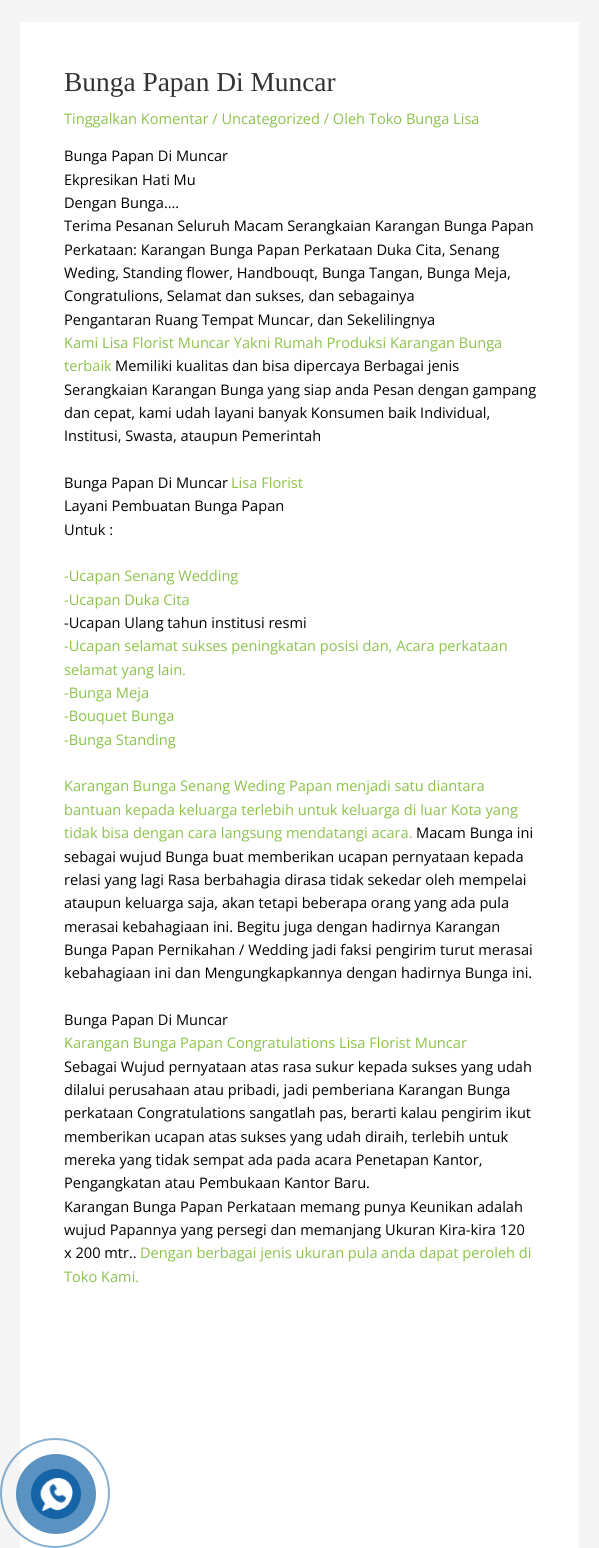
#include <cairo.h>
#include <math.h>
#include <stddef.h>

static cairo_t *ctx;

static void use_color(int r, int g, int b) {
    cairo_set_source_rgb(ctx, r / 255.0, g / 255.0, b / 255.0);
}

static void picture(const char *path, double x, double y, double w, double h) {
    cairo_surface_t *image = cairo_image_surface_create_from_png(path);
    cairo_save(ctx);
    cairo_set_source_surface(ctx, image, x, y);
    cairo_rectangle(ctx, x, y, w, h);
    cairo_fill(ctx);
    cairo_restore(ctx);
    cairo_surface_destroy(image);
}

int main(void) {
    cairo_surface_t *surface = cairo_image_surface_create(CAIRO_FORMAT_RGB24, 599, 1548);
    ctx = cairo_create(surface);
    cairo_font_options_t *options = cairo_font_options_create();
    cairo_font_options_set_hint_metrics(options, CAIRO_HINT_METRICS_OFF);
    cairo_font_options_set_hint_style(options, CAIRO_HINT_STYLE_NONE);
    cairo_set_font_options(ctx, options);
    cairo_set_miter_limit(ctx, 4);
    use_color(245, 245, 245);
    cairo_paint(ctx);
    use_color(255, 255, 255);
    cairo_rectangle(ctx, 20, 22, 559, 1526);
    cairo_fill(ctx);
    cairo_select_font_face(ctx, "Liberation Serif", CAIRO_FONT_SLANT_NORMAL, CAIRO_FONT_WEIGHT_NORMAL);
    cairo_set_font_size(ctx, 27.4);
    use_color(51, 51, 51);
    cairo_move_to(ctx, 64, 91);
    cairo_show_text(ctx, "Bunga Papan Di Muncar");
    cairo_select_font_face(ctx, "Open Sans", CAIRO_FONT_SLANT_NORMAL, CAIRO_FONT_WEIGHT_NORMAL);
    cairo_set_font_size(ctx, 14.6);
    use_color(139, 195, 74);
    cairo_move_to(ctx, 64, 124);
    cairo_show_text(ctx, "Tinggalkan Komentar / Uncategorized / Oleh Toko Bunga Lisa");
    use_color(0, 0, 0);
    cairo_move_to(ctx, 64, 161);
    cairo_show_text(ctx, "Bunga Papan Di Muncar");
    cairo_move_to(ctx, 64, 185);
    cairo_show_text(ctx, "Ekpresikan Hati Mu");
    cairo_move_to(ctx, 64, 208);
    cairo_show_text(ctx, "Dengan Bunga….");
    cairo_move_to(ctx, 64, 231);
    cairo_show_text(ctx, "Terima Pesanan Seluruh Macam Serangkaian Karangan Bunga Papan");
    cairo_move_to(ctx, 64, 255);
    cairo_show_text(ctx, "Perkataan: Karangan Bunga Papan Perkataan Duka Cita, Senang");
    cairo_move_to(ctx, 64, 278);
    cairo_show_text(ctx, "Weding, Standing flower, Handbouqt, Bunga Tangan, Bunga Meja,");
    cairo_move_to(ctx, 64, 301);
    cairo_show_text(ctx, "Congratulions, Selamat dan sukses, dan sebagainya");
    cairo_move_to(ctx, 64, 325);
    cairo_show_text(ctx, "Pengantaran Ruang Tempat Muncar, dan Sekelilingnya");
    use_color(139, 195, 74);
    cairo_move_to(ctx, 64, 348);
    cairo_show_text(ctx, "Kami Lisa Florist Muncar Yakni Rumah Produksi Karangan Bunga");
    cairo_move_to(ctx, 64, 371);
    cairo_show_text(ctx, "terbaik");
    use_color(0, 0, 0);
    cairo_move_to(ctx, 115, 371);
    cairo_show_text(ctx, "Memiliki kualitas dan bisa dipercaya Berbagai jenis");
    cairo_move_to(ctx, 64, 395);
    cairo_show_text(ctx, "Serangkaian Karangan Bunga yang siap anda Pesan dengan gampang");
    cairo_move_to(ctx, 64, 418);
    cairo_show_text(ctx, "dan cepat, kami udah layani banyak Konsumen baik Individual,");
    cairo_move_to(ctx, 64, 441);
    cairo_show_text(ctx, "Institusi, Swasta, ataupun Pemerintah");
    cairo_move_to(ctx, 64, 488);
    cairo_show_text(ctx, "Bunga Papan Di Muncar");
    use_color(139, 195, 74);
    cairo_move_to(ctx, 231, 488);
    cairo_show_text(ctx, "Lisa Florist");
    use_color(0, 0, 0);
    cairo_move_to(ctx, 64, 511);
    cairo_show_text(ctx, "Layani Pembuatan Bunga Papan");
    cairo_move_to(ctx, 64, 535);
    cairo_show_text(ctx, "Untuk :");
    use_color(139, 195, 74);
    cairo_move_to(ctx, 64, 581);
    cairo_show_text(ctx, "-Ucapan Senang Wedding");
    cairo_move_to(ctx, 64, 605);
    cairo_show_text(ctx, "-Ucapan Duka Cita");
    use_color(0, 0, 0);
    cairo_move_to(ctx, 64, 628);
    cairo_show_text(ctx, "-Ucapan Ulang tahun institusi resmi");
    use_color(139, 195, 74);
    cairo_move_to(ctx, 64, 651);
    cairo_show_text(ctx, "-Ucapan selamat sukses peningkatan posisi dan, Acara perkataan");
    cairo_move_to(ctx, 64, 675);
    cairo_show_text(ctx, "selamat yang lain.");
    cairo_move_to(ctx, 64, 698);
    cairo_show_text(ctx, "-Bunga Meja");
    cairo_move_to(ctx, 64, 721);
    cairo_show_text(ctx, "-Bouquet Bunga");
    cairo_move_to(ctx, 64, 745);
    cairo_show_text(ctx, "-Bunga Standing");
    cairo_move_to(ctx, 64, 791);
    cairo_show_text(ctx, "Karangan Bunga Senang Weding Papan menjadi satu diantara");
    cairo_move_to(ctx, 64, 815);
    cairo_show_text(ctx, "bantuan kepada keluarga terlebih untuk keluarga di luar Kota yang");
    cairo_move_to(ctx, 64, 838);
    cairo_show_text(ctx, "tidak bisa dengan cara langsung mendatangi acara.");
    use_color(0, 0, 0);
    cairo_move_to(ctx, 416, 838);
    cairo_show_text(ctx, "Macam Bunga ini");
    cairo_move_to(ctx, 64, 862);
    cairo_show_text(ctx, "sebagai wujud Bunga buat memberikan ucapan pernyataan kepada");
    cairo_move_to(ctx, 64, 885);
    cairo_show_text(ctx, "relasi yang lagi Rasa berbahagia dirasa tidak sekedar oleh mempelai");
    cairo_move_to(ctx, 64, 908);
    cairo_show_text(ctx, "ataupun keluarga saja, akan tetapi beberapa orang yang ada pula");
    cairo_move_to(ctx, 64, 932);
    cairo_show_text(ctx, "merasai kebahagiaan ini. Begitu juga dengan hadirnya Karangan");
    cairo_move_to(ctx, 64, 955);
    cairo_show_text(ctx, "Bunga Papan Pernikahan / Wedding jadi faksi pengirim turut merasai");
    cairo_move_to(ctx, 64, 978);
    cairo_show_text(ctx, "kebahagiaan ini dan Mengungkapkannya dengan hadirnya Bunga ini.");
    cairo_move_to(ctx, 64, 1025);
    cairo_show_text(ctx, "Bunga Papan Di Muncar");
    use_color(139, 195, 74);
    cairo_move_to(ctx, 64, 1048);
    cairo_show_text(ctx, "Karangan Bunga Papan Congratulations Lisa Florist Muncar");
    use_color(0, 0, 0);
    cairo_move_to(ctx, 64, 1072);
    cairo_show_text(ctx, "Sebagai Wujud pernyataan atas rasa sukur kepada sukses yang udah");
    cairo_move_to(ctx, 64, 1095);
    cairo_show_text(ctx, "dilalui perusahaan atau pribadi, jadi pemberiana Karangan Bunga");
    cairo_move_to(ctx, 64, 1118);
    cairo_show_text(ctx, "perkataan Congratulations sangatlah pas, berarti kalau pengirim ikut");
    cairo_move_to(ctx, 64, 1142);
    cairo_show_text(ctx, "memberikan ucapan atas sukses yang udah diraih, terlebih untuk");
    cairo_move_to(ctx, 64, 1165);
    cairo_show_text(ctx, "mereka yang tidak sempat ada pada acara Penetapan Kantor,");
    cairo_move_to(ctx, 64, 1188);
    cairo_show_text(ctx, "Pengangkatan atau Pembukaan Kantor Baru.");
    cairo_move_to(ctx, 64, 1212);
    cairo_show_text(ctx, "Karangan Bunga Papan Perkataan memang punya Keunikan adalah");
    cairo_move_to(ctx, 64, 1235);
    cairo_show_text(ctx, "wujud Papannya yang persegi dan memanjang Ukuran Kira-kira 120");
    cairo_move_to(ctx, 64, 1258);
    cairo_show_text(ctx, "x 200 mtr..");
    use_color(139, 195, 74);
    cairo_move_to(ctx, 140, 1258);
    cairo_show_text(ctx, "Dengan berbagai jenis ukuran pula anda dapat peroleh di");
    cairo_move_to(ctx, 64, 1282);
    cairo_show_text(ctx, "Toko Kami.");
    cairo_new_path(ctx);
    cairo_arc(ctx, 55, 1493, 54, 0, 2 * M_PI);
    cairo_set_source_rgba(ctx, 0.082, 0.392, 0.655, 0.5);
    cairo_stroke(ctx);
    cairo_set_source_rgba(ctx, 0.082, 0.392, 0.655, 0.7);
    cairo_arc(ctx, 56, 1494, 40, 0, 2 * M_PI);
    cairo_fill(ctx);
    use_color(21, 100, 167);
    cairo_arc(ctx, 56, 1494, 25, 0, 2 * M_PI);
    cairo_fill(ctx);
    picture("img1.png", 40, 1477, 33, 34);
    cairo_surface_write_to_png(surface, "result.png");
    cairo_font_options_destroy(options);
    cairo_destroy(ctx);
    cairo_surface_destroy(surface);
    return 0;
}
